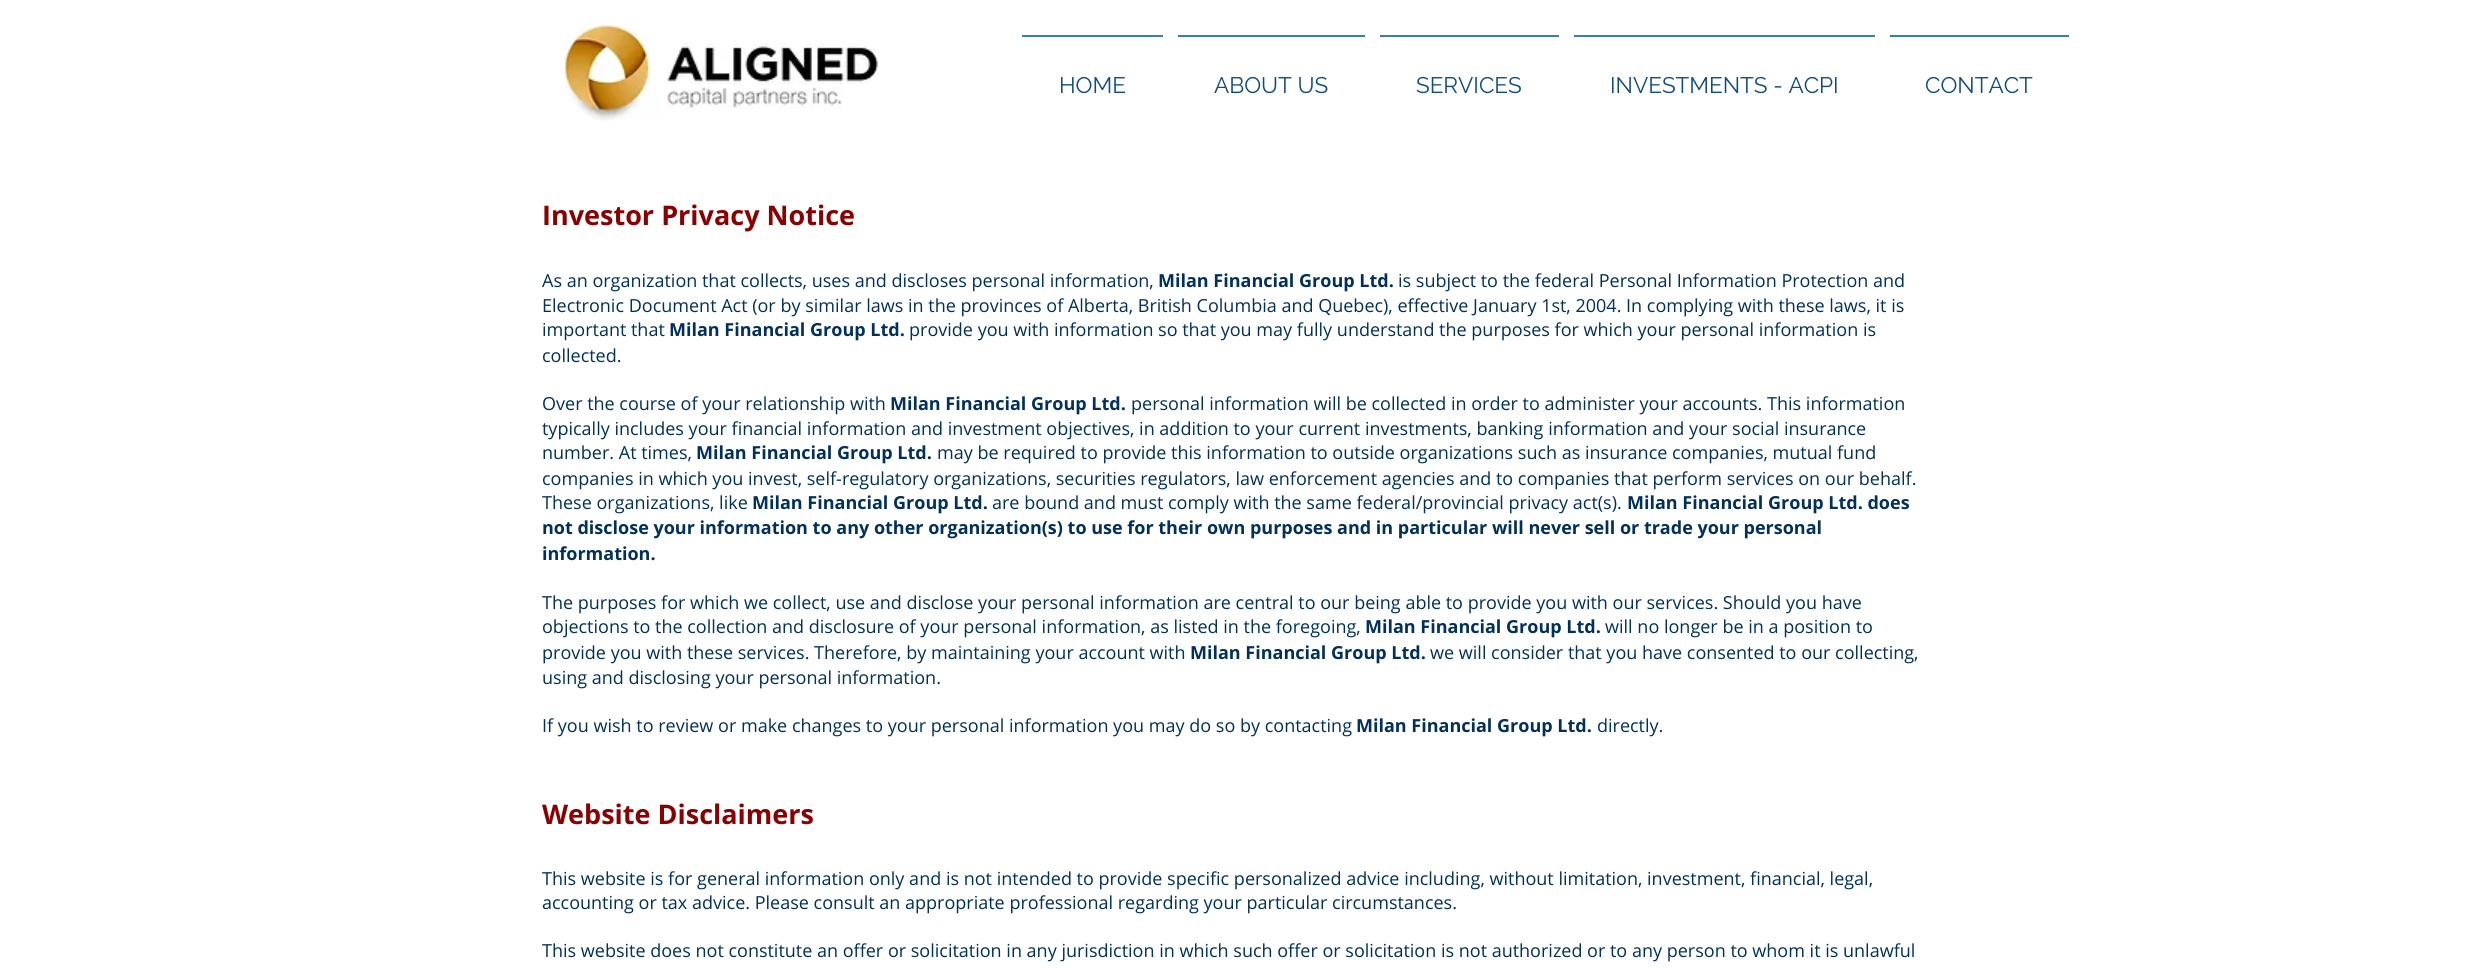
#include <cairo.h>
#include <math.h>
#include <stddef.h>

static cairo_t *ctx;

static void use_color(int r, int g, int b) {
    cairo_set_source_rgb(ctx, r / 255.0, g / 255.0, b / 255.0);
}

static void picture(const char *path, double x, double y, double w, double h) {
    cairo_surface_t *image = cairo_image_surface_create_from_png(path);
    cairo_save(ctx);
    cairo_set_source_surface(ctx, image, x, y);
    cairo_rectangle(ctx, x, y, w, h);
    cairo_fill(ctx);
    cairo_restore(ctx);
    cairo_surface_destroy(image);
}

int main(void) {
    cairo_surface_t *surface = cairo_image_surface_create(CAIRO_FORMAT_RGB24, 2465, 971);
    ctx = cairo_create(surface);
    cairo_font_options_t *options = cairo_font_options_create();
    cairo_font_options_set_hint_metrics(options, CAIRO_HINT_METRICS_OFF);
    cairo_font_options_set_hint_style(options, CAIRO_HINT_STYLE_NONE);
    cairo_set_font_options(ctx, options);
    cairo_set_miter_limit(ctx, 4);
    use_color(255, 255, 255);
    cairo_paint(ctx);
    picture("img1.png", 564, 23, 314, 98);
    use_color(55, 125, 189);
    cairo_rectangle(ctx, 1022, 35, 141, 2);
    cairo_fill(ctx);
    cairo_select_font_face(ctx, "Raleway", CAIRO_FONT_SLANT_NORMAL, CAIRO_FONT_WEIGHT_NORMAL);
    cairo_set_font_size(ctx, 22.5);
    use_color(15, 76, 133);
    cairo_move_to(ctx, 1059, 93);
    cairo_show_text(ctx, "HOME");
    use_color(55, 125, 189);
    cairo_rectangle(ctx, 1178, 35, 187, 2);
    cairo_fill(ctx);
    use_color(15, 76, 133);
    cairo_move_to(ctx, 1214, 93);
    cairo_show_text(ctx, "ABOUT US");
    use_color(55, 125, 189);
    cairo_rectangle(ctx, 1380, 35, 179, 2);
    cairo_fill(ctx);
    use_color(15, 76, 133);
    cairo_move_to(ctx, 1416, 93);
    cairo_show_text(ctx, "SERVICES");
    use_color(55, 125, 189);
    cairo_rectangle(ctx, 1574, 35, 301, 2);
    cairo_fill(ctx);
    use_color(15, 76, 133);
    cairo_move_to(ctx, 1610, 93);
    cairo_show_text(ctx, "INVESTMENTS - ACPI");
    use_color(55, 125, 189);
    cairo_rectangle(ctx, 1890, 35, 179, 2);
    cairo_fill(ctx);
    use_color(15, 76, 133);
    cairo_move_to(ctx, 1925, 93);
    cairo_show_text(ctx, "CONTACT");
    cairo_select_font_face(ctx, "Open Sans", CAIRO_FONT_SLANT_NORMAL, CAIRO_FONT_WEIGHT_BOLD);
    cairo_set_font_size(ctx, 27);
    use_color(139, 0, 0);
    cairo_move_to(ctx, 542, 225);
    cairo_show_text(ctx, "Investor Privacy Notice");
    cairo_select_font_face(ctx, "Open Sans", CAIRO_FONT_SLANT_NORMAL, CAIRO_FONT_WEIGHT_NORMAL);
    cairo_set_font_size(ctx, 18);
    use_color(0, 48, 91);
    cairo_move_to(ctx, 542, 287);
    cairo_show_text(ctx, "As an organization that collects, uses and discloses personal information,");
    cairo_select_font_face(ctx, "Open Sans", CAIRO_FONT_SLANT_NORMAL, CAIRO_FONT_WEIGHT_BOLD);
    cairo_move_to(ctx, 1158, 287);
    cairo_show_text(ctx, "Milan Financial Group Ltd.");
    cairo_select_font_face(ctx, "Open Sans", CAIRO_FONT_SLANT_NORMAL, CAIRO_FONT_WEIGHT_NORMAL);
    cairo_move_to(ctx, 1398, 287);
    cairo_show_text(ctx, "is subject to the federal Personal Information Protection and");
    cairo_move_to(ctx, 542, 312);
    cairo_show_text(ctx, "Electronic Document Act (or by similar laws in the provinces of Alberta, British Columbia and Quebec), effective January 1st, 2004. In complying with these laws, it is");
    cairo_move_to(ctx, 542, 336);
    cairo_show_text(ctx, "important that");
    cairo_select_font_face(ctx, "Open Sans", CAIRO_FONT_SLANT_NORMAL, CAIRO_FONT_WEIGHT_BOLD);
    cairo_move_to(ctx, 669, 336);
    cairo_show_text(ctx, "Milan Financial Group Ltd.");
    cairo_select_font_face(ctx, "Open Sans", CAIRO_FONT_SLANT_NORMAL, CAIRO_FONT_WEIGHT_NORMAL);
    cairo_move_to(ctx, 909, 336);
    cairo_show_text(ctx, "provide you with information so that you may fully understand the purposes for which your personal information is");
    cairo_move_to(ctx, 542, 362);
    cairo_show_text(ctx, "collected.");
    cairo_move_to(ctx, 542, 410);
    cairo_show_text(ctx, "Over the course of your relationship with");
    cairo_select_font_face(ctx, "Open Sans", CAIRO_FONT_SLANT_NORMAL, CAIRO_FONT_WEIGHT_BOLD);
    cairo_move_to(ctx, 890, 410);
    cairo_show_text(ctx, "Milan Financial Group Ltd.");
    cairo_select_font_face(ctx, "Open Sans", CAIRO_FONT_SLANT_NORMAL, CAIRO_FONT_WEIGHT_NORMAL);
    cairo_move_to(ctx, 1131, 410);
    cairo_show_text(ctx, "personal information will be collected in order to administer your accounts. This information");
    cairo_move_to(ctx, 542, 435);
    cairo_show_text(ctx, "typically includes your financial information and investment objectives, in addition to your current investments, banking information and your social insurance");
    cairo_move_to(ctx, 542, 459);
    cairo_show_text(ctx, "number. At times,");
    cairo_select_font_face(ctx, "Open Sans", CAIRO_FONT_SLANT_NORMAL, CAIRO_FONT_WEIGHT_BOLD);
    cairo_move_to(ctx, 696, 459);
    cairo_show_text(ctx, "Milan Financial Group Ltd.");
    cairo_select_font_face(ctx, "Open Sans", CAIRO_FONT_SLANT_NORMAL, CAIRO_FONT_WEIGHT_NORMAL);
    cairo_move_to(ctx, 937, 459);
    cairo_show_text(ctx, "may be required to provide this information to outside organizations such as insurance companies, mutual fund");
    cairo_move_to(ctx, 542, 485);
    cairo_show_text(ctx, "companies in which you invest, self-regulatory organizations, securities regulators, law enforcement agencies and to companies that perform services on our behalf.");
    cairo_move_to(ctx, 542, 509);
    cairo_show_text(ctx, "These organizations, like");
    cairo_select_font_face(ctx, "Open Sans", CAIRO_FONT_SLANT_NORMAL, CAIRO_FONT_WEIGHT_BOLD);
    cairo_move_to(ctx, 752, 509);
    cairo_show_text(ctx, "Milan Financial Group Ltd.");
    cairo_select_font_face(ctx, "Open Sans", CAIRO_FONT_SLANT_NORMAL, CAIRO_FONT_WEIGHT_NORMAL);
    cairo_move_to(ctx, 992, 509);
    cairo_show_text(ctx, "are bound and must comply with the same federal/provincial privacy act(s).");
    cairo_select_font_face(ctx, "Open Sans", CAIRO_FONT_SLANT_NORMAL, CAIRO_FONT_WEIGHT_BOLD);
    cairo_move_to(ctx, 1627, 509);
    cairo_show_text(ctx, "Milan Financial Group Ltd. does");
    cairo_move_to(ctx, 542, 534);
    cairo_show_text(ctx, "not disclose your information to any other organization(s) to use for their own purposes and in particular will never sell or trade your personal");
    cairo_move_to(ctx, 542, 560);
    cairo_show_text(ctx, "information.");
    cairo_select_font_face(ctx, "Open Sans", CAIRO_FONT_SLANT_NORMAL, CAIRO_FONT_WEIGHT_NORMAL);
    cairo_move_to(ctx, 542, 609);
    cairo_show_text(ctx, "The purposes for which we collect, use and disclose your personal information are central to our being able to provide you with our services. Should you have");
    cairo_move_to(ctx, 542, 633);
    cairo_show_text(ctx, "objections to the collection and disclosure of your personal information, as listed in the foregoing,");
    cairo_select_font_face(ctx, "Open Sans", CAIRO_FONT_SLANT_NORMAL, CAIRO_FONT_WEIGHT_BOLD);
    cairo_move_to(ctx, 1365, 633);
    cairo_show_text(ctx, "Milan Financial Group Ltd.");
    cairo_select_font_face(ctx, "Open Sans", CAIRO_FONT_SLANT_NORMAL, CAIRO_FONT_WEIGHT_NORMAL);
    cairo_move_to(ctx, 1605, 633);
    cairo_show_text(ctx, "will no longer be in a position to");
    cairo_move_to(ctx, 542, 659);
    cairo_show_text(ctx, "provide you with these services. Therefore, by maintaining your account with");
    cairo_select_font_face(ctx, "Open Sans", CAIRO_FONT_SLANT_NORMAL, CAIRO_FONT_WEIGHT_BOLD);
    cairo_move_to(ctx, 1190, 659);
    cairo_show_text(ctx, "Milan Financial Group Ltd.");
    cairo_select_font_face(ctx, "Open Sans", CAIRO_FONT_SLANT_NORMAL, CAIRO_FONT_WEIGHT_NORMAL);
    cairo_move_to(ctx, 1430, 659);
    cairo_show_text(ctx, "we will consider that you have consented to our collecting,");
    cairo_move_to(ctx, 542, 684);
    cairo_show_text(ctx, "using and disclosing your personal information.");
    cairo_move_to(ctx, 542, 732);
    cairo_show_text(ctx, "If you wish to review or make changes to your personal information you may do so by contacting");
    cairo_select_font_face(ctx, "Open Sans", CAIRO_FONT_SLANT_NORMAL, CAIRO_FONT_WEIGHT_BOLD);
    cairo_move_to(ctx, 1356, 732);
    cairo_show_text(ctx, "Milan Financial Group Ltd.");
    cairo_select_font_face(ctx, "Open Sans", CAIRO_FONT_SLANT_NORMAL, CAIRO_FONT_WEIGHT_NORMAL);
    cairo_move_to(ctx, 1597, 732);
    cairo_show_text(ctx, "directly.");
    cairo_select_font_face(ctx, "Open Sans", CAIRO_FONT_SLANT_NORMAL, CAIRO_FONT_WEIGHT_BOLD);
    cairo_set_font_size(ctx, 27);
    use_color(139, 0, 0);
    cairo_move_to(ctx, 542, 824);
    cairo_show_text(ctx, "Website Disclaimers");
    cairo_select_font_face(ctx, "Open Sans", CAIRO_FONT_SLANT_NORMAL, CAIRO_FONT_WEIGHT_NORMAL);
    cairo_set_font_size(ctx, 18);
    use_color(0, 48, 91);
    cairo_move_to(ctx, 542, 885);
    cairo_show_text(ctx, "This website is for general information only and is not intended to provide specific personalized advice including, without limitation, investment, financial, legal,");
    cairo_move_to(ctx, 542, 909);
    cairo_show_text(ctx, "accounting or tax advice. Please consult an appropriate professional regarding your particular circumstances.");
    cairo_move_to(ctx, 542, 957);
    cairo_show_text(ctx, "This website does not constitute an offer or solicitation in any jurisdiction in which such offer or solicitation is not authorized or to any person to whom it is unlawful");
    cairo_surface_write_to_png(surface, "result.png");
    cairo_font_options_destroy(options);
    cairo_destroy(ctx);
    cairo_surface_destroy(surface);
    return 0;
}
